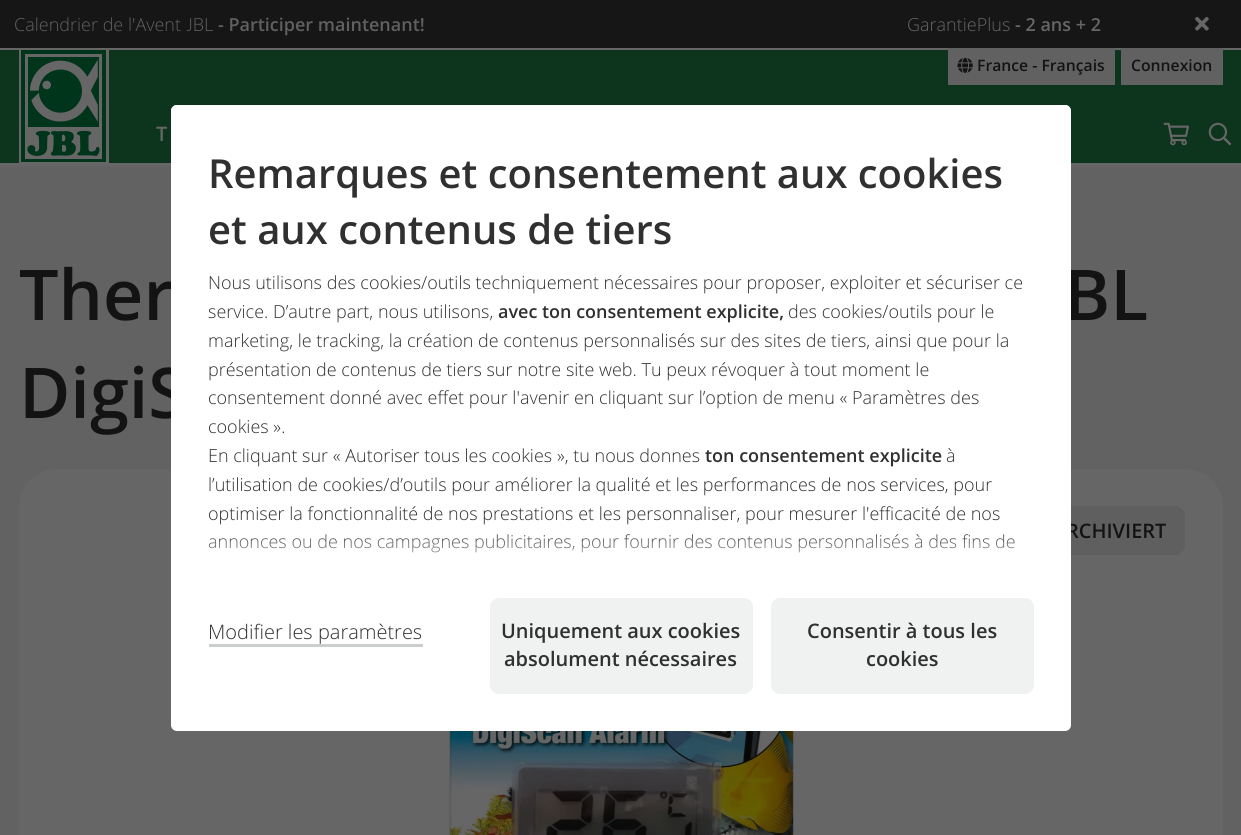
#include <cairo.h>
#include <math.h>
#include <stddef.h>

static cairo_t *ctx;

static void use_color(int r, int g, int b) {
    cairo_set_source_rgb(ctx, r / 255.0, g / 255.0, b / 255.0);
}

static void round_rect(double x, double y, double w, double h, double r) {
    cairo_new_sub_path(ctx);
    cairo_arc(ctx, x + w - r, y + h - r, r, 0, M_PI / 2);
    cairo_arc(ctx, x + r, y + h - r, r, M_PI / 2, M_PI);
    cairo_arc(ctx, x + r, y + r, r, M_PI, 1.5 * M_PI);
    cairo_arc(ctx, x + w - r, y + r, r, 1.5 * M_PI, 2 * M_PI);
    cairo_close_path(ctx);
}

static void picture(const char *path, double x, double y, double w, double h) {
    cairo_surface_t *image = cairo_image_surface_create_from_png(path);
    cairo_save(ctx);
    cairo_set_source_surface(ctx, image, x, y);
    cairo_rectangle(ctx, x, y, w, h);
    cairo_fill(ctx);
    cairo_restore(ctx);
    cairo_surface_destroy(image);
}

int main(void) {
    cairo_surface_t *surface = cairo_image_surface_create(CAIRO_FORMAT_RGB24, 1241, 835);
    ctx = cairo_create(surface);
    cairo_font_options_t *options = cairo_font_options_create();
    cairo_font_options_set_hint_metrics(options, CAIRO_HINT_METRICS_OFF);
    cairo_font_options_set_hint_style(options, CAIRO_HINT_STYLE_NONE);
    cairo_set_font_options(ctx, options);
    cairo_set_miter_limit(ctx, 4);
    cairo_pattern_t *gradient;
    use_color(98, 98, 98);
    cairo_paint(ctx);
    use_color(22, 22, 22);
    cairo_rectangle(ctx, 0, 0, 1241, 48);
    cairo_fill(ctx);
    cairo_select_font_face(ctx, "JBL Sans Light", CAIRO_FONT_SLANT_NORMAL, CAIRO_FONT_WEIGHT_NORMAL);
    cairo_set_font_size(ctx, 18);
    use_color(96, 96, 96);
    cairo_move_to(ctx, 14, 31);
    cairo_show_text(ctx, "Calendrier de l'Avent JBL");
    cairo_select_font_face(ctx, "JBL Sans SemiBold", CAIRO_FONT_SLANT_NORMAL, CAIRO_FONT_WEIGHT_NORMAL);
    cairo_move_to(ctx, 218, 31);
    cairo_show_text(ctx, "- Participer maintenant!");
    cairo_select_font_face(ctx, "JBL Sans Light", CAIRO_FONT_SLANT_NORMAL, CAIRO_FONT_WEIGHT_NORMAL);
    use_color(102, 102, 102);
    cairo_move_to(ctx, 907, 31);
    cairo_show_text(ctx, "GarantiePlus");
    cairo_select_font_face(ctx, "JBL Sans SemiBold", CAIRO_FONT_SLANT_NORMAL, CAIRO_FONT_WEIGHT_NORMAL);
    cairo_move_to(ctx, 1015, 31);
    cairo_show_text(ctx, "- 2 ans + 2");
    picture("img1.png", 1195, 16, 14, 15);
    cairo_rectangle(ctx, 0, 48, 1241, 2);
    cairo_fill(ctx);
    cairo_rectangle(ctx, 0, 163, 1241, 3);
    cairo_fill(ctx);
    use_color(13, 52, 29);
    cairo_rectangle(ctx, 0, 50, 1154, 113);
    cairo_fill(ctx);
    use_color(102, 102, 102);
    cairo_rectangle(ctx, 19, 50, 90, 113);
    cairo_fill(ctx);
    picture("img2.png", 21, 50, 85, 112);
    use_color(13, 52, 29);
    cairo_rectangle(ctx, 1154, 85, 45, 78);
    cairo_fill(ctx);
    picture("img3.png", 1163, 122, 26, 24);
    cairo_rectangle(ctx, 1199, 50, 42, 113);
    cairo_fill(ctx);
    picture("img4.png", 1208, 122, 24, 24);
    use_color(96, 97, 96);
    cairo_rectangle(ctx, 948, 48, 167, 37);
    cairo_fill(ctx);
    picture("img5.png", 957, 57, 16, 16);
    cairo_set_font_size(ctx, 15.75);
    use_color(19, 19, 19);
    cairo_move_to(ctx, 977, 71);
    cairo_show_text(ctx, "France - Français");
    use_color(96, 97, 96);
    cairo_rectangle(ctx, 1121, 48, 102, 37);
    cairo_fill(ctx);
    use_color(19, 19, 19);
    cairo_move_to(ctx, 1131, 71);
    cairo_show_text(ctx, "Connexion");
    cairo_set_font_size(ctx, 20);
    use_color(102, 102, 102);
    cairo_move_to(ctx, 156, 141);
    cairo_show_text(ctx, "T");
    cairo_set_font_size(ctx, 70);
    use_color(19, 19, 19);
    cairo_move_to(ctx, 19, 320);
    cairo_show_text(ctx, "Ther");
    cairo_move_to(ctx, 1064, 320);
    cairo_show_text(ctx, "BL");
    cairo_move_to(ctx, 19, 418);
    cairo_show_text(ctx, "DigiS");
    use_color(102, 102, 102);
    round_rect(19, 469, 1204, 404, 38);
    cairo_fill(ctx);
    use_color(95, 95, 95);
    round_rect(1034, 506, 151, 49, 10);
    cairo_fill(ctx);
    cairo_set_font_size(ctx, 20);
    use_color(19, 19, 19);
    cairo_move_to(ctx, 1066, 538);
    cairo_show_text(ctx, "RCHIVIERT");
    picture("img6.png", 449, 731, 345, 104);
    use_color(255, 255, 255);
    round_rect(171, 105, 900, 626, 6);
    cairo_fill(ctx);
    cairo_set_font_size(ctx, 40);
    use_color(48, 48, 48);
    cairo_move_to(ctx, 208, 188);
    cairo_show_text(ctx, "Remarques et consentement aux cookies");
    gradient = cairo_pattern_create_linear(621, 104, 621, 161);
    cairo_pattern_add_color_stop_rgba(gradient, 0, 1, 1, 1, 1);
    cairo_pattern_add_color_stop_rgba(gradient, 1, 1, 1, 1, 0);
    cairo_set_source(ctx, gradient);
    cairo_pattern_destroy(gradient);
    round_rect(171, 105, 900, 56, 6);
    cairo_fill(ctx);
    use_color(48, 48, 48);
    cairo_move_to(ctx, 208, 244);
    cairo_show_text(ctx, "et aux contenus de tiers");
    cairo_select_font_face(ctx, "JBL Sans Light", CAIRO_FONT_SLANT_NORMAL, CAIRO_FONT_WEIGHT_NORMAL);
    cairo_set_font_size(ctx, 18);
    cairo_move_to(ctx, 208, 289);
    cairo_show_text(ctx, "Nous utilisons des cookies/outils techniquement nécessaires pour proposer, exploiter et sécuriser ce");
    cairo_move_to(ctx, 208, 318);
    cairo_show_text(ctx, "service. D’autre part, nous utilisons,");
    cairo_select_font_face(ctx, "JBL Sans SemiBold", CAIRO_FONT_SLANT_NORMAL, CAIRO_FONT_WEIGHT_NORMAL);
    cairo_move_to(ctx, 498, 318);
    cairo_show_text(ctx, "avec ton consentement explicite,");
    cairo_select_font_face(ctx, "JBL Sans Light", CAIRO_FONT_SLANT_NORMAL, CAIRO_FONT_WEIGHT_NORMAL);
    cairo_move_to(ctx, 788, 318);
    cairo_show_text(ctx, "des cookies/outils pour le");
    cairo_move_to(ctx, 208, 347);
    cairo_show_text(ctx, "marketing, le tracking, la création de contenus personnalisés sur des sites de tiers, ainsi que pour la");
    cairo_move_to(ctx, 208, 376);
    cairo_show_text(ctx, "présentation de contenus de tiers sur notre site web. Tu peux révoquer à tout moment le");
    cairo_move_to(ctx, 208, 404);
    cairo_show_text(ctx, "consentement donné avec effet pour l'avenir en cliquant sur l’option de menu « Paramètres des");
    cairo_move_to(ctx, 208, 433);
    cairo_show_text(ctx, "cookies ».");
    cairo_move_to(ctx, 208, 462);
    cairo_show_text(ctx, "En cliquant sur « Autoriser tous les cookies », tu nous donnes");
    cairo_select_font_face(ctx, "JBL Sans SemiBold", CAIRO_FONT_SLANT_NORMAL, CAIRO_FONT_WEIGHT_NORMAL);
    cairo_move_to(ctx, 705, 462);
    cairo_show_text(ctx, "ton consentement explicite");
    cairo_select_font_face(ctx, "JBL Sans Light", CAIRO_FONT_SLANT_NORMAL, CAIRO_FONT_WEIGHT_NORMAL);
    cairo_move_to(ctx, 946, 462);
    cairo_show_text(ctx, "à");
    cairo_move_to(ctx, 208, 491);
    cairo_show_text(ctx, "l’utilisation de cookies/d’outils pour améliorer la qualité et les performances de nos services, pour");
    cairo_move_to(ctx, 208, 520);
    cairo_show_text(ctx, "optimiser la fonctionnalité de nos prestations et les personnaliser, pour mesurer l'efficacité de nos");
    cairo_move_to(ctx, 208, 548);
    cairo_show_text(ctx, "annonces ou de nos campagnes publicitaires, pour fournir des contenus personnalisés à des fins de");
    gradient = cairo_pattern_create_linear(621, 528, 621, 584);
    cairo_pattern_add_color_stop_rgba(gradient, 0, 1, 1, 1, 0);
    cairo_pattern_add_color_stop_rgba(gradient, 1, 1, 1, 1, 1);
    cairo_set_source(ctx, gradient);
    cairo_pattern_destroy(gradient);
    cairo_rectangle(ctx, 209, 534, 806, 19);
    cairo_fill(ctx);
    cairo_set_font_size(ctx, 20);
    use_color(48, 48, 48);
    cairo_move_to(ctx, 208, 639);
    cairo_show_text(ctx, "Modifier les paramètres");
    use_color(202, 207, 203);
    cairo_rectangle(ctx, 209, 644, 214, 3);
    cairo_fill(ctx);
    use_color(239, 242, 240);
    round_rect(490, 598, 263, 96, 9);
    cairo_fill(ctx);
    cairo_select_font_face(ctx, "JBL Sans SemiBold", CAIRO_FONT_SLANT_NORMAL, CAIRO_FONT_WEIGHT_NORMAL);
    use_color(48, 48, 48);
    cairo_move_to(ctx, 501, 638);
    cairo_show_text(ctx, "Uniquement aux cookies");
    cairo_move_to(ctx, 504, 666);
    cairo_show_text(ctx, "absolument nécessaires");
    use_color(239, 242, 240);
    round_rect(771, 598, 263, 96, 9);
    cairo_fill(ctx);
    use_color(48, 48, 48);
    cairo_move_to(ctx, 807, 638);
    cairo_show_text(ctx, "Consentir à tous les");
    cairo_move_to(ctx, 866, 666);
    cairo_show_text(ctx, "cookies");
    cairo_surface_write_to_png(surface, "result.png");
    cairo_font_options_destroy(options);
    cairo_destroy(ctx);
    cairo_surface_destroy(surface);
    return 0;
}
